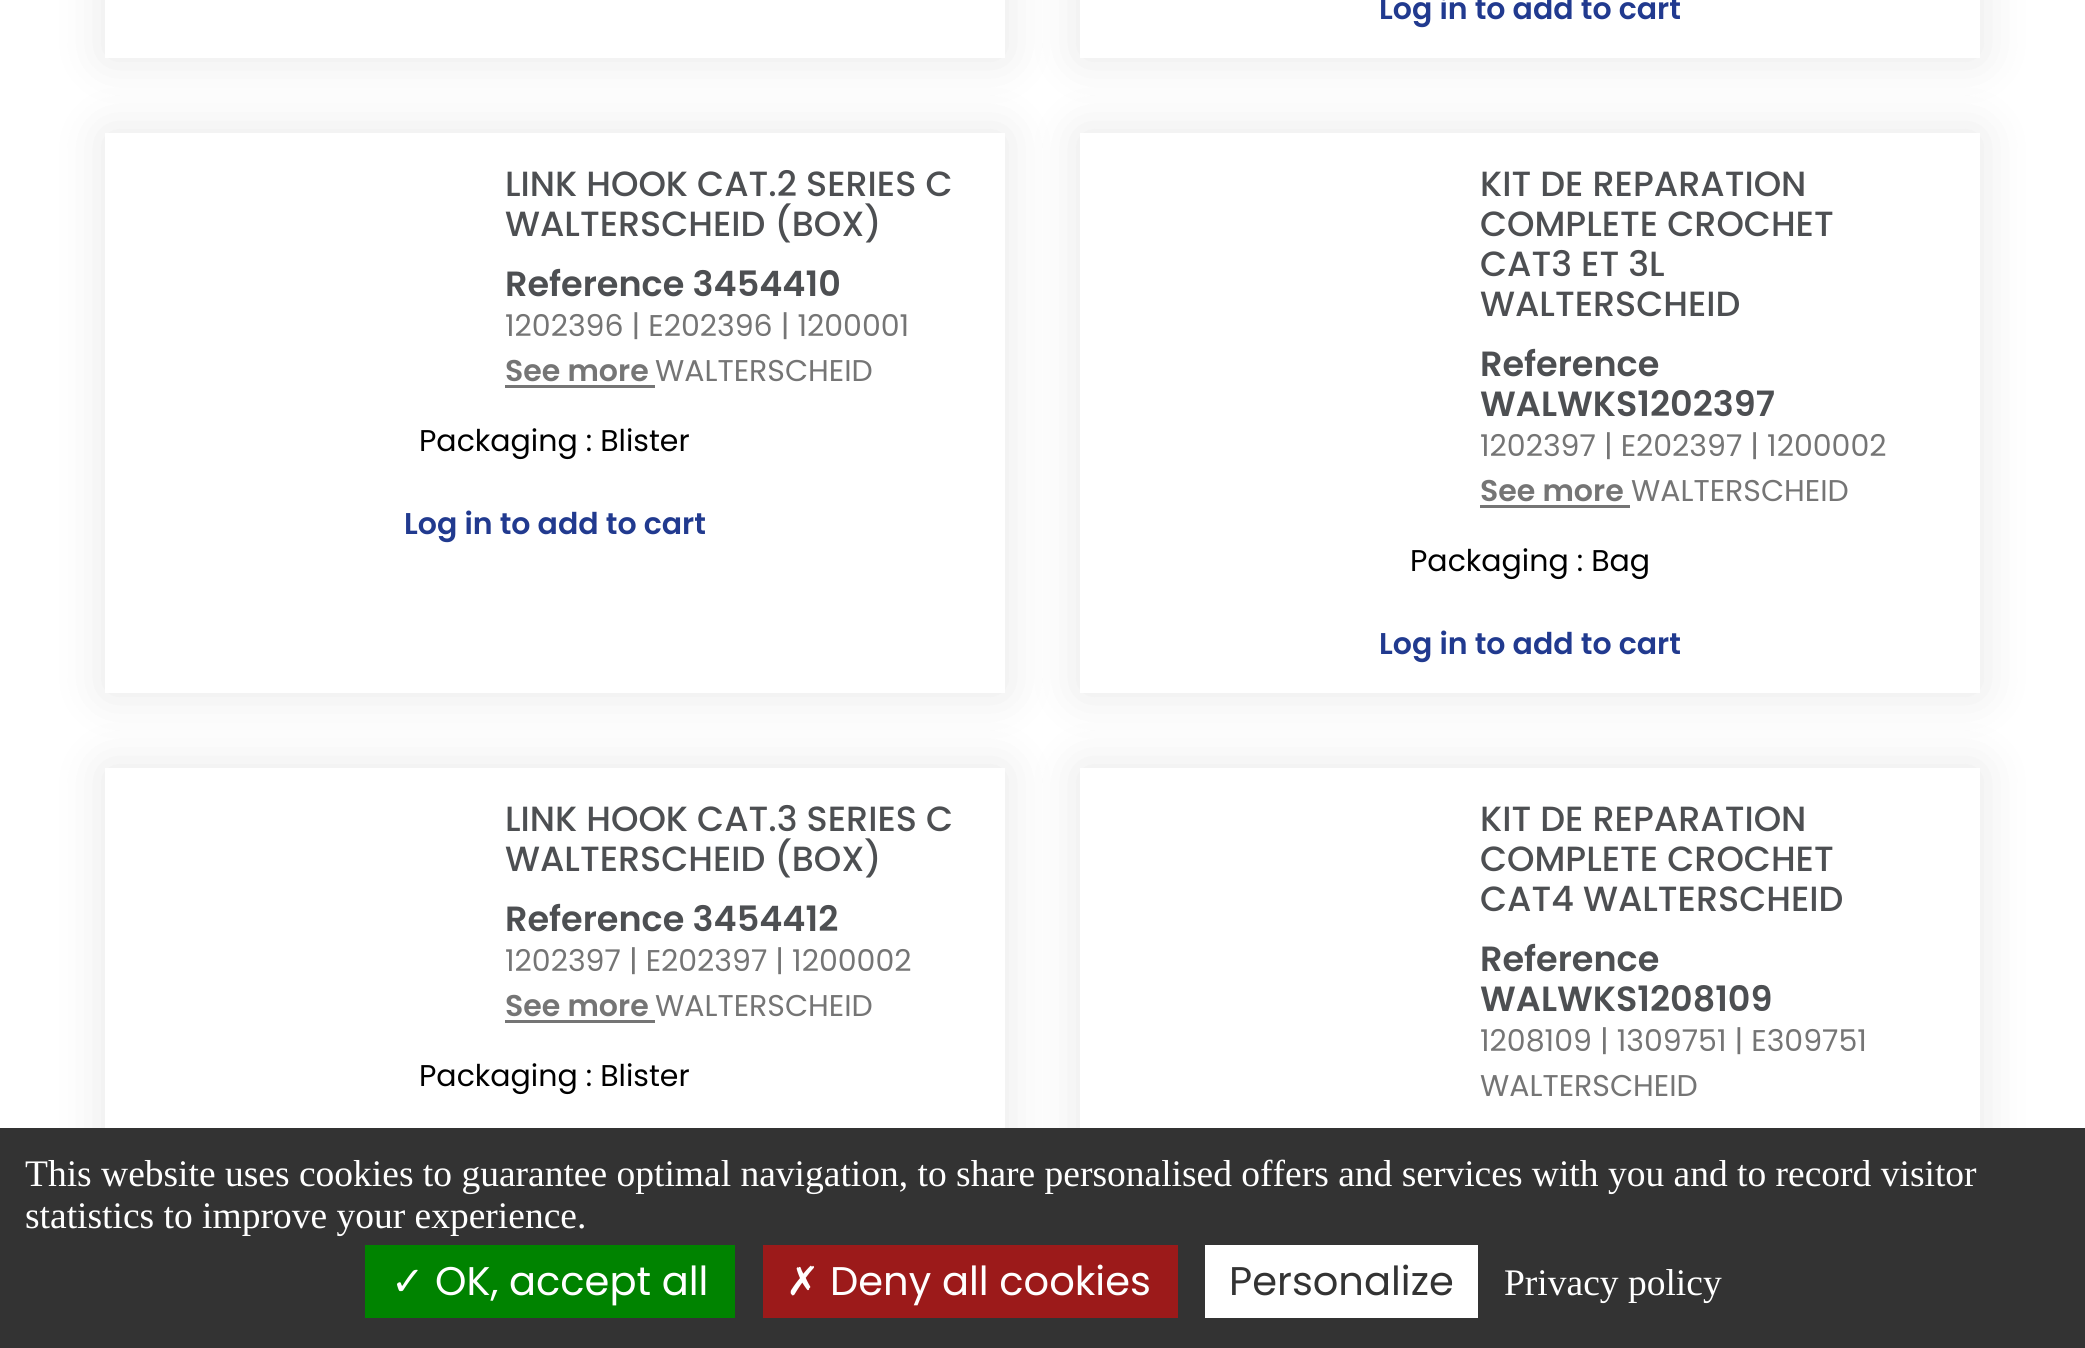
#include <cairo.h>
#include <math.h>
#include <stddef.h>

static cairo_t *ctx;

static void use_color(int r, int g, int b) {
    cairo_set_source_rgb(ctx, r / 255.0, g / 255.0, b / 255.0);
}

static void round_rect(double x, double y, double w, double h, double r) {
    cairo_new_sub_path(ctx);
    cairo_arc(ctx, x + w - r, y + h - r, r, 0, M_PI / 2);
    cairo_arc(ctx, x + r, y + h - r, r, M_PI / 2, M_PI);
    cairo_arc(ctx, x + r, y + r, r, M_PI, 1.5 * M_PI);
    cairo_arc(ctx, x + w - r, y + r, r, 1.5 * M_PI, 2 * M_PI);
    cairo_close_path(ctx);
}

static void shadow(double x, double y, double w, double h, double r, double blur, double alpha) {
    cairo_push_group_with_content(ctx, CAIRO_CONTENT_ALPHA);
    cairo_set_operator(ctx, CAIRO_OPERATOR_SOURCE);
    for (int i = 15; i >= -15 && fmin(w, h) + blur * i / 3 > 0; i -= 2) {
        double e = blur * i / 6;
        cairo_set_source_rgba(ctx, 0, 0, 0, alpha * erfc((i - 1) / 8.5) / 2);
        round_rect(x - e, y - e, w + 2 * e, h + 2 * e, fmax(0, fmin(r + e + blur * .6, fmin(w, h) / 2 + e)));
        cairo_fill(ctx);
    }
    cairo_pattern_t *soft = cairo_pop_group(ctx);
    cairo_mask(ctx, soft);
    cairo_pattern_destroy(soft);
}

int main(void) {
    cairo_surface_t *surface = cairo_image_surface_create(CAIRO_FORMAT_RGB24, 2085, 1348);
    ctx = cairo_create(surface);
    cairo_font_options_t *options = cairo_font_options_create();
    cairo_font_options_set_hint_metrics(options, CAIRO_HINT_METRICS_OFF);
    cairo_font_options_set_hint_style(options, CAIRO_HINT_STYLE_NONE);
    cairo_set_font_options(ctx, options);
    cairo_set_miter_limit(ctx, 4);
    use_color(255, 255, 255);
    cairo_paint(ctx);
    use_color(0, 0, 0);
    shadow(105, -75, 900, 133, 0, 25, 0.1);
    use_color(255, 255, 255);
    cairo_rectangle(ctx, 105, 0, 900, 58);
    cairo_fill(ctx);
    use_color(0, 0, 0);
    shadow(1080, -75, 900, 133, 0, 25, 0.1);
    use_color(255, 255, 255);
    cairo_rectangle(ctx, 1080, 0, 900, 58);
    cairo_fill(ctx);
    cairo_select_font_face(ctx, "Poppins SemiBold", CAIRO_FONT_SLANT_NORMAL, CAIRO_FONT_WEIGHT_NORMAL);
    cairo_set_font_size(ctx, 30);
    use_color(33, 58, 143);
    cairo_move_to(ctx, 1379, 19);
    cairo_show_text(ctx, "Log in to add to cart");
    use_color(0, 0, 0);
    shadow(105, 133, 900, 560, 0, 25, 0.1);
    use_color(255, 255, 255);
    cairo_rectangle(ctx, 105, 133, 900, 560);
    cairo_fill(ctx);
    cairo_select_font_face(ctx, "Poppins Medium", CAIRO_FONT_SLANT_NORMAL, CAIRO_FONT_WEIGHT_NORMAL);
    cairo_set_font_size(ctx, 35);
    use_color(77, 79, 82);
    cairo_move_to(ctx, 505, 196);
    cairo_show_text(ctx, "LINK HOOK CAT.2 SERIES C");
    cairo_move_to(ctx, 505, 236);
    cairo_show_text(ctx, "WALTERSCHEID (BOX)");
    cairo_select_font_face(ctx, "Poppins SemiBold", CAIRO_FONT_SLANT_NORMAL, CAIRO_FONT_WEIGHT_NORMAL);
    cairo_move_to(ctx, 505, 296);
    cairo_show_text(ctx, "Reference 3454410");
    cairo_select_font_face(ctx, "Poppins", CAIRO_FONT_SLANT_NORMAL, CAIRO_FONT_WEIGHT_NORMAL);
    cairo_set_font_size(ctx, 30);
    use_color(117, 117, 117);
    cairo_move_to(ctx, 505, 336);
    cairo_show_text(ctx, "1202396 | E202396 | 1200001");
    cairo_select_font_face(ctx, "Poppins SemiBold", CAIRO_FONT_SLANT_NORMAL, CAIRO_FONT_WEIGHT_NORMAL);
    cairo_move_to(ctx, 505, 381);
    cairo_show_text(ctx, "See more");
    cairo_rectangle(ctx, 505, 385, 150, 3);
    cairo_fill(ctx);
    cairo_select_font_face(ctx, "Poppins", CAIRO_FONT_SLANT_NORMAL, CAIRO_FONT_WEIGHT_NORMAL);
    cairo_move_to(ctx, 655, 381);
    cairo_show_text(ctx, "WALTERSCHEID");
    use_color(0, 0, 0);
    cairo_move_to(ctx, 419, 451);
    cairo_show_text(ctx, "Packaging : Blister");
    cairo_select_font_face(ctx, "Poppins SemiBold", CAIRO_FONT_SLANT_NORMAL, CAIRO_FONT_WEIGHT_NORMAL);
    use_color(33, 58, 143);
    cairo_move_to(ctx, 404, 534);
    cairo_show_text(ctx, "Log in to add to cart");
    use_color(0, 0, 0);
    shadow(1080, 133, 900, 560, 0, 25, 0.1);
    use_color(255, 255, 255);
    cairo_rectangle(ctx, 1080, 133, 900, 560);
    cairo_fill(ctx);
    cairo_select_font_face(ctx, "Poppins Medium", CAIRO_FONT_SLANT_NORMAL, CAIRO_FONT_WEIGHT_NORMAL);
    cairo_set_font_size(ctx, 35);
    use_color(77, 79, 82);
    cairo_move_to(ctx, 1480, 196);
    cairo_show_text(ctx, "KIT DE REPARATION");
    cairo_move_to(ctx, 1480, 236);
    cairo_show_text(ctx, "COMPLETE CROCHET");
    cairo_move_to(ctx, 1480, 276);
    cairo_show_text(ctx, "CAT3 ET 3L");
    cairo_move_to(ctx, 1480, 316);
    cairo_show_text(ctx, "WALTERSCHEID");
    cairo_select_font_face(ctx, "Poppins SemiBold", CAIRO_FONT_SLANT_NORMAL, CAIRO_FONT_WEIGHT_NORMAL);
    cairo_move_to(ctx, 1480, 376);
    cairo_show_text(ctx, "Reference");
    cairo_move_to(ctx, 1480, 416);
    cairo_show_text(ctx, "WALWKS1202397");
    cairo_select_font_face(ctx, "Poppins", CAIRO_FONT_SLANT_NORMAL, CAIRO_FONT_WEIGHT_NORMAL);
    cairo_set_font_size(ctx, 30);
    use_color(117, 117, 117);
    cairo_move_to(ctx, 1480, 456);
    cairo_show_text(ctx, "1202397 | E202397 | 1200002");
    cairo_select_font_face(ctx, "Poppins SemiBold", CAIRO_FONT_SLANT_NORMAL, CAIRO_FONT_WEIGHT_NORMAL);
    cairo_move_to(ctx, 1480, 501);
    cairo_show_text(ctx, "See more");
    cairo_rectangle(ctx, 1480, 505, 150, 3);
    cairo_fill(ctx);
    cairo_select_font_face(ctx, "Poppins", CAIRO_FONT_SLANT_NORMAL, CAIRO_FONT_WEIGHT_NORMAL);
    cairo_move_to(ctx, 1631, 501);
    cairo_show_text(ctx, "WALTERSCHEID");
    use_color(0, 0, 0);
    cairo_move_to(ctx, 1410, 571);
    cairo_show_text(ctx, "Packaging : Bag");
    cairo_select_font_face(ctx, "Poppins SemiBold", CAIRO_FONT_SLANT_NORMAL, CAIRO_FONT_WEIGHT_NORMAL);
    use_color(33, 58, 143);
    cairo_move_to(ctx, 1379, 654);
    cairo_show_text(ctx, "Log in to add to cart");
    use_color(0, 0, 0);
    shadow(105, 768, 900, 520, 0, 25, 0.1);
    use_color(255, 255, 255);
    cairo_rectangle(ctx, 105, 768, 900, 360);
    cairo_fill(ctx);
    cairo_select_font_face(ctx, "Poppins Medium", CAIRO_FONT_SLANT_NORMAL, CAIRO_FONT_WEIGHT_NORMAL);
    cairo_set_font_size(ctx, 35);
    use_color(77, 79, 82);
    cairo_move_to(ctx, 505, 831);
    cairo_show_text(ctx, "LINK HOOK CAT.3 SERIES C");
    cairo_move_to(ctx, 505, 871);
    cairo_show_text(ctx, "WALTERSCHEID (BOX)");
    cairo_select_font_face(ctx, "Poppins SemiBold", CAIRO_FONT_SLANT_NORMAL, CAIRO_FONT_WEIGHT_NORMAL);
    cairo_move_to(ctx, 505, 931);
    cairo_show_text(ctx, "Reference 3454412");
    cairo_select_font_face(ctx, "Poppins", CAIRO_FONT_SLANT_NORMAL, CAIRO_FONT_WEIGHT_NORMAL);
    cairo_set_font_size(ctx, 30);
    use_color(117, 117, 117);
    cairo_move_to(ctx, 505, 971);
    cairo_show_text(ctx, "1202397 | E202397 | 1200002");
    cairo_select_font_face(ctx, "Poppins SemiBold", CAIRO_FONT_SLANT_NORMAL, CAIRO_FONT_WEIGHT_NORMAL);
    cairo_move_to(ctx, 505, 1016);
    cairo_show_text(ctx, "See more");
    cairo_rectangle(ctx, 505, 1020, 150, 3);
    cairo_fill(ctx);
    cairo_select_font_face(ctx, "Poppins", CAIRO_FONT_SLANT_NORMAL, CAIRO_FONT_WEIGHT_NORMAL);
    cairo_move_to(ctx, 655, 1016);
    cairo_show_text(ctx, "WALTERSCHEID");
    use_color(0, 0, 0);
    cairo_move_to(ctx, 419, 1086);
    cairo_show_text(ctx, "Packaging : Blister");
    use_color(0, 0, 0);
    shadow(1080, 768, 900, 520, 0, 25, 0.1);
    use_color(255, 255, 255);
    cairo_rectangle(ctx, 1080, 768, 900, 360);
    cairo_fill(ctx);
    cairo_select_font_face(ctx, "Poppins Medium", CAIRO_FONT_SLANT_NORMAL, CAIRO_FONT_WEIGHT_NORMAL);
    cairo_set_font_size(ctx, 35);
    use_color(77, 79, 82);
    cairo_move_to(ctx, 1480, 831);
    cairo_show_text(ctx, "KIT DE REPARATION");
    cairo_move_to(ctx, 1480, 871);
    cairo_show_text(ctx, "COMPLETE CROCHET");
    cairo_move_to(ctx, 1480, 911);
    cairo_show_text(ctx, "CAT4 WALTERSCHEID");
    cairo_select_font_face(ctx, "Poppins SemiBold", CAIRO_FONT_SLANT_NORMAL, CAIRO_FONT_WEIGHT_NORMAL);
    cairo_move_to(ctx, 1480, 971);
    cairo_show_text(ctx, "Reference");
    cairo_move_to(ctx, 1480, 1011);
    cairo_show_text(ctx, "WALWKS1208109");
    cairo_select_font_face(ctx, "Poppins", CAIRO_FONT_SLANT_NORMAL, CAIRO_FONT_WEIGHT_NORMAL);
    cairo_set_font_size(ctx, 30);
    use_color(117, 117, 117);
    cairo_move_to(ctx, 1480, 1051);
    cairo_show_text(ctx, "1208109 | 1309751 | E309751");
    cairo_move_to(ctx, 1480, 1096);
    cairo_show_text(ctx, "WALTERSCHEID");
    use_color(51, 51, 51);
    cairo_rectangle(ctx, 0, 1128, 2085, 220);
    cairo_fill(ctx);
    cairo_select_font_face(ctx, "Liberation Serif", CAIRO_FONT_SLANT_NORMAL, CAIRO_FONT_WEIGHT_NORMAL);
    cairo_set_font_size(ctx, 37.5);
    use_color(255, 255, 255);
    cairo_move_to(ctx, 25, 1186);
    cairo_show_text(ctx, "This website uses cookies to guarantee optimal navigation, to share personalised offers and services with you and to record visitor");
    cairo_move_to(ctx, 25, 1228);
    cairo_show_text(ctx, "statistics to improve your experience.");
    use_color(0, 131, 0);
    cairo_rectangle(ctx, 365, 1245, 370, 73);
    cairo_fill(ctx);
    cairo_select_font_face(ctx, "DejaVu Sans", CAIRO_FONT_SLANT_NORMAL, CAIRO_FONT_WEIGHT_NORMAL);
    cairo_set_font_size(ctx, 40);
    use_color(255, 255, 255);
    cairo_move_to(ctx, 391, 1295);
    cairo_show_text(ctx, "✓");
    cairo_select_font_face(ctx, "Poppins", CAIRO_FONT_SLANT_NORMAL, CAIRO_FONT_WEIGHT_NORMAL);
    cairo_move_to(ctx, 435, 1295);
    cairo_show_text(ctx, "OK, accept all");
    use_color(156, 26, 26);
    cairo_rectangle(ctx, 763, 1245, 415, 73);
    cairo_fill(ctx);
    cairo_select_font_face(ctx, "DejaVu Sans", CAIRO_FONT_SLANT_NORMAL, CAIRO_FONT_WEIGHT_NORMAL);
    use_color(255, 255, 255);
    cairo_move_to(ctx, 786, 1295);
    cairo_show_text(ctx, "✗");
    cairo_select_font_face(ctx, "Poppins", CAIRO_FONT_SLANT_NORMAL, CAIRO_FONT_WEIGHT_NORMAL);
    cairo_move_to(ctx, 830, 1295);
    cairo_show_text(ctx, "Deny all cookies");
    cairo_rectangle(ctx, 1205, 1245, 273, 73);
    cairo_fill(ctx);
    use_color(51, 51, 51);
    cairo_move_to(ctx, 1229, 1295);
    cairo_show_text(ctx, "Personalize");
    cairo_select_font_face(ctx, "Liberation Serif", CAIRO_FONT_SLANT_NORMAL, CAIRO_FONT_WEIGHT_NORMAL);
    cairo_set_font_size(ctx, 37.5);
    use_color(255, 255, 255);
    cairo_move_to(ctx, 1504, 1295);
    cairo_show_text(ctx, "Privacy policy");
    cairo_surface_write_to_png(surface, "result.png");
    cairo_font_options_destroy(options);
    cairo_destroy(ctx);
    cairo_surface_destroy(surface);
    return 0;
}
